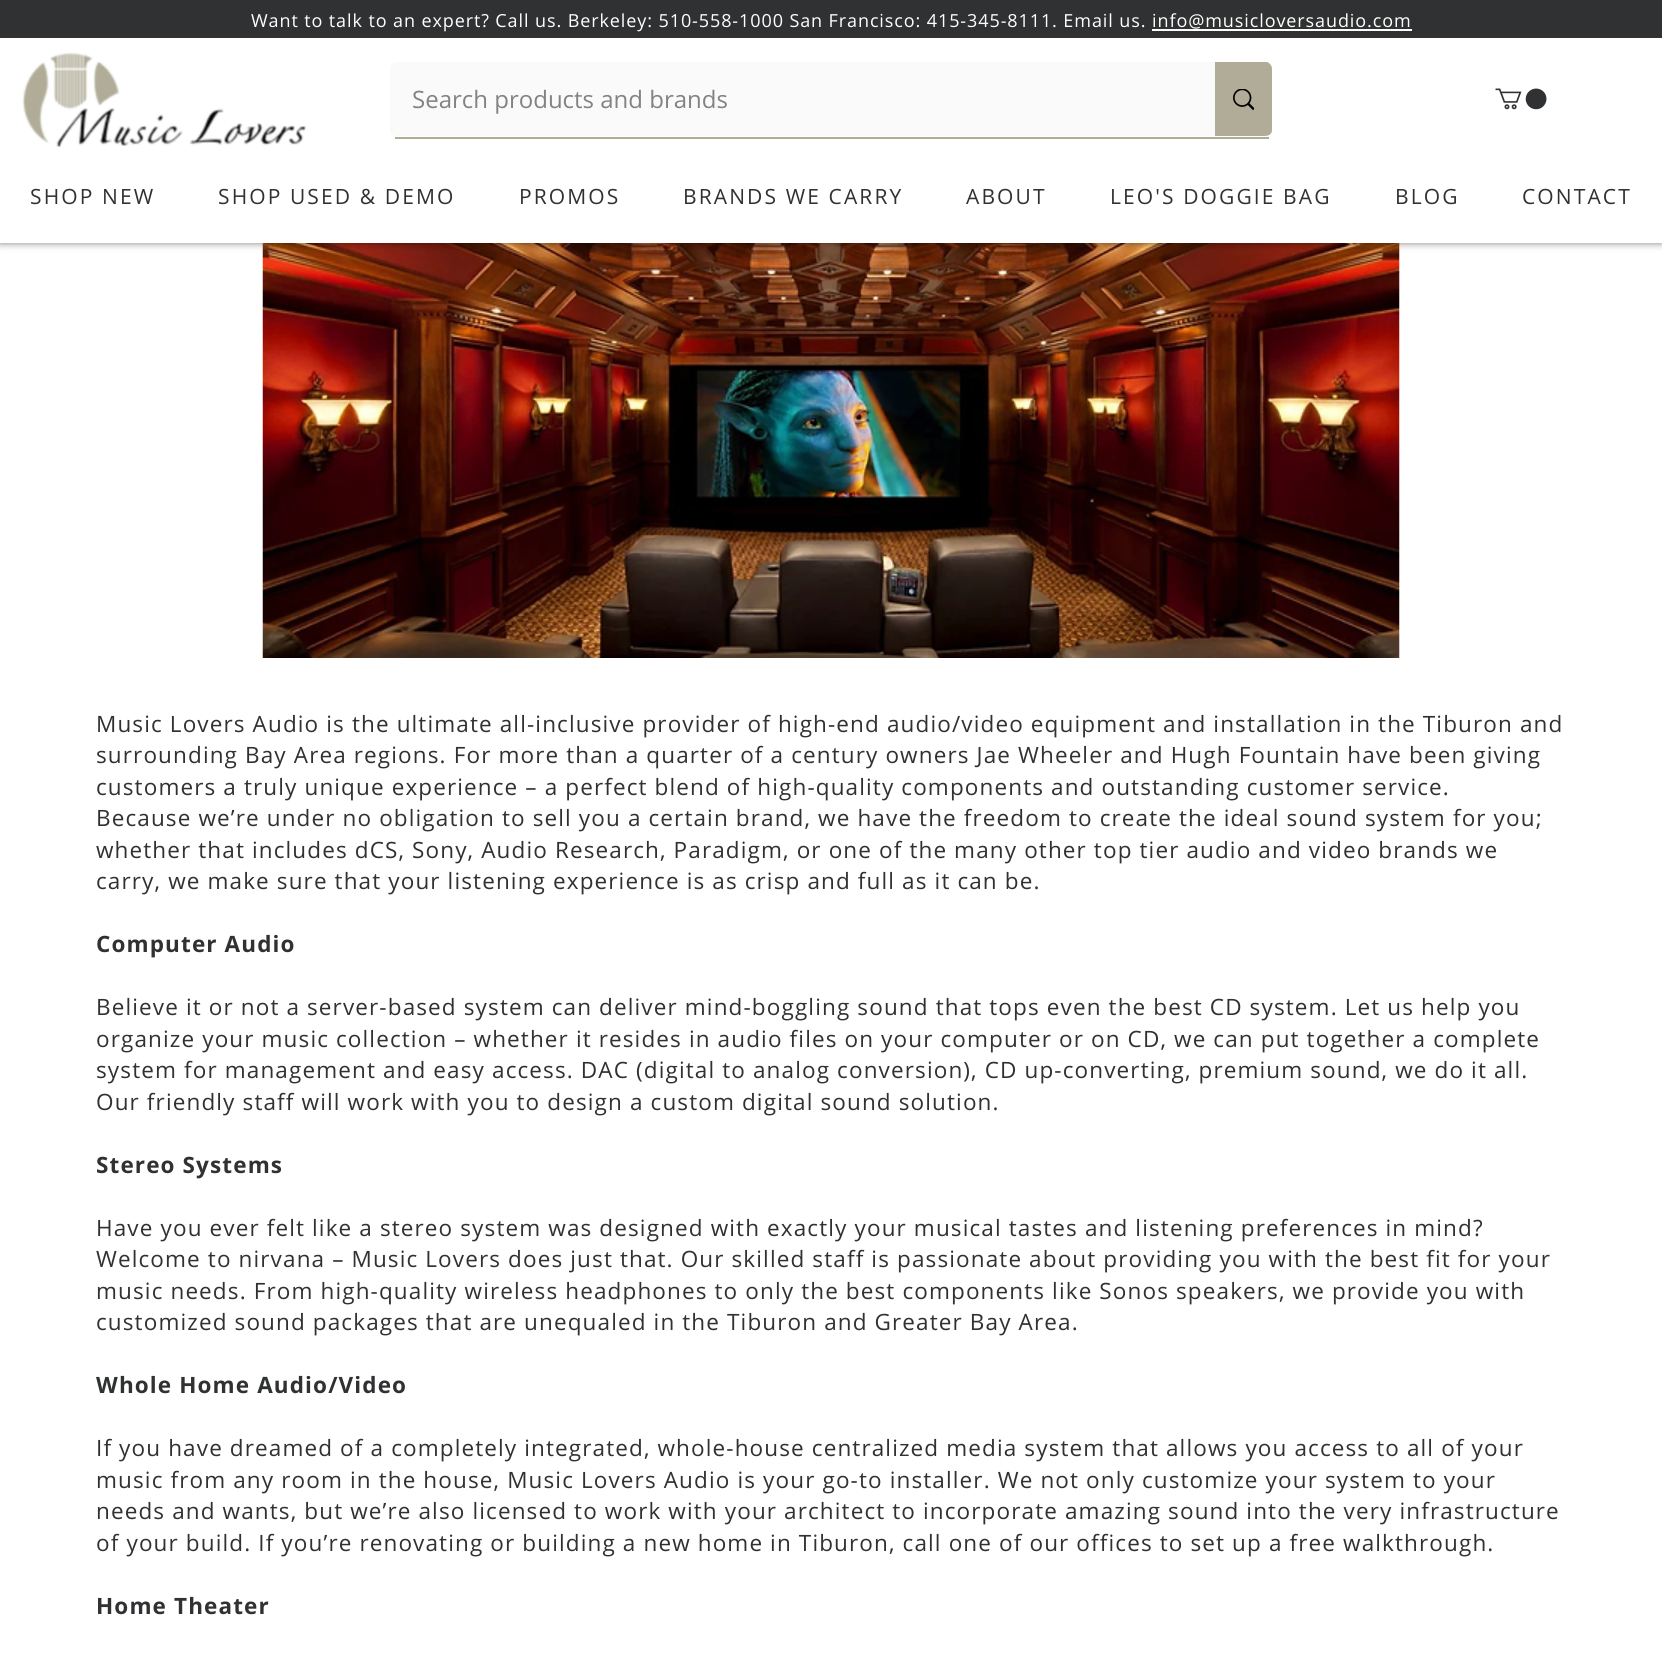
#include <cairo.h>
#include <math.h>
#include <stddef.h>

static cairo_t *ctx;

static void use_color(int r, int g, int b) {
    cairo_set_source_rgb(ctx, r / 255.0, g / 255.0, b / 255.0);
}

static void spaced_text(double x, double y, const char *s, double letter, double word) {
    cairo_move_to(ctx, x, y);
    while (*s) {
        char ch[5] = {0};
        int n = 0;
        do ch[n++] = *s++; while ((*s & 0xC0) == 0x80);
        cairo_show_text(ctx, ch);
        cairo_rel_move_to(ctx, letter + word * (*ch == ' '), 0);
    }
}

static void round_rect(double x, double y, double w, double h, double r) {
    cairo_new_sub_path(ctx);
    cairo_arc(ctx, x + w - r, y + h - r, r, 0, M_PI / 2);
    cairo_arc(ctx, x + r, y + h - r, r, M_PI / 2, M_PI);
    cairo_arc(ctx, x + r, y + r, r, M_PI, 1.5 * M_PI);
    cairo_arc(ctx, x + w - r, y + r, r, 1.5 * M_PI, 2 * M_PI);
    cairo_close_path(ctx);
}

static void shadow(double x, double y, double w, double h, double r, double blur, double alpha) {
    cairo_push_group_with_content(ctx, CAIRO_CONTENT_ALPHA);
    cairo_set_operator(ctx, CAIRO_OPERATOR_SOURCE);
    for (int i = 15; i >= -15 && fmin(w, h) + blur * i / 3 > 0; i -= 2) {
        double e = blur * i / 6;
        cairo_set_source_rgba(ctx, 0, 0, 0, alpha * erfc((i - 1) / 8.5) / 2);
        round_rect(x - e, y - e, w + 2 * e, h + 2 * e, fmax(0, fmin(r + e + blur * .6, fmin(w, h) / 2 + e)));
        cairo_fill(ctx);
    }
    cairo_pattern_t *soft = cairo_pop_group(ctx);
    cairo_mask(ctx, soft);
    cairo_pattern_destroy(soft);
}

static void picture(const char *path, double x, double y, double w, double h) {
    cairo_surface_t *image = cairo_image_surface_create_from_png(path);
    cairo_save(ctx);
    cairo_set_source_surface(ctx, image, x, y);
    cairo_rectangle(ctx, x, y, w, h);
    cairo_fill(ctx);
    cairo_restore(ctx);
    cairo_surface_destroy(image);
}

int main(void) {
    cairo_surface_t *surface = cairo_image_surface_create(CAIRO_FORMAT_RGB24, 1662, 1664);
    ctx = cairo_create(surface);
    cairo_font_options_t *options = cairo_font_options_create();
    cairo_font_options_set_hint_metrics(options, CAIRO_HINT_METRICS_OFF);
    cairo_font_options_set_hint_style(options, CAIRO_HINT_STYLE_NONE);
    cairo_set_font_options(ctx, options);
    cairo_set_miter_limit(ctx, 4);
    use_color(255, 255, 255);
    cairo_paint(ctx);
    picture("img4.png", 262, 243, 1138, 415);
    use_color(0, 0, 0);
    shadow(0, 0, 1662, 243, 0, 4, 0.5);
    use_color(255, 255, 255);
    cairo_rectangle(ctx, 0, 38, 1662, 205);
    cairo_fill(ctx);
    use_color(48, 49, 50);
    cairo_rectangle(ctx, 0, 0, 1662, 38);
    cairo_fill(ctx);
    picture("img1.png", 22, 52, 285, 95);
    cairo_select_font_face(ctx, "Open Sans", CAIRO_FONT_SLANT_NORMAL, CAIRO_FONT_WEIGHT_NORMAL);
    cairo_set_font_size(ctx, 18);
    use_color(255, 255, 254);
    spaced_text(251, 27, "Want to talk to an expert? Call us. Berkeley: 510-558-1000 San Francisco: 415-345-8111. Email us. info@musicloversaudio.com", 0.9, 0);
    cairo_rectangle(ctx, 1152, 29, 260, 2);
    cairo_fill(ctx);
    use_color(176, 172, 152);
    cairo_rectangle(ctx, 395, 137, 874, 2);
    cairo_fill(ctx);
    use_color(250, 250, 250);
    cairo_new_path(ctx);
    cairo_move_to(ctx, 390, 69);
    cairo_line_to(ctx, 390, 130);
    cairo_curve_to(ctx, 390, 134, 393, 136, 398, 136);
    cairo_line_to(ctx, 1264, 136);
    cairo_curve_to(ctx, 1269, 136, 1272, 134, 1272, 130);
    cairo_line_to(ctx, 1272, 69);
    cairo_curve_to(ctx, 1272, 66, 1270, 63, 1267, 62);
    cairo_line_to(ctx, 395, 62);
    cairo_curve_to(ctx, 392, 63, 390, 66, 390, 69);
    cairo_close_path(ctx);
    cairo_fill(ctx);
    cairo_set_font_size(ctx, 24);
    use_color(130, 131, 132);
    cairo_move_to(ctx, 412, 108);
    cairo_show_text(ctx, "Search products and brands");
    use_color(176, 172, 152);
    cairo_new_path(ctx);
    cairo_move_to(ctx, 1215, 62);
    cairo_line_to(ctx, 1215, 136);
    cairo_line_to(ctx, 1264, 136);
    cairo_curve_to(ctx, 1269, 136, 1272, 134, 1272, 130);
    cairo_line_to(ctx, 1272, 69);
    cairo_curve_to(ctx, 1272, 66, 1270, 63, 1267, 62);
    cairo_close_path(ctx);
    cairo_fill(ctx);
    picture("img2.png", 1233, 89, 21, 21);
    picture("img3.png", 1495, 88, 52, 22);
    cairo_set_font_size(ctx, 21);
    use_color(48, 49, 50);
    spaced_text(30, 204, "SHOP NEW", 2.1, 0);
    spaced_text(218, 204, "SHOP USED & DEMO", 2.1, 0);
    spaced_text(519, 204, "PROMOS", 2.1, 0);
    spaced_text(683, 204, "BRANDS WE CARRY", 2.1, 0);
    spaced_text(966, 204, "ABOUT", 2.1, 0);
    spaced_text(1110, 204, "LEO'S DOGGIE BAG", 2.1, 0);
    spaced_text(1395, 204, "BLOG", 2.1, 0);
    spaced_text(1522, 204, "CONTACT", 2.1, 0);
    cairo_set_font_size(ctx, 22.5);
    spaced_text(96, 732, "Music Lovers Audio is the ultimate all-inclusive provider of high-end audio/video equipment and installation in the Tiburon and", 1.12, 0);
    spaced_text(96, 763, "surrounding Bay Area regions. For more than a quarter of a century owners Jae Wheeler and Hugh Fountain have been giving", 1.12, 0);
    spaced_text(96, 795, "customers a truly unique experience – a perfect blend of high-quality components and outstanding customer service.", 1.12, 0);
    spaced_text(96, 826, "Because we’re under no obligation to sell you a certain brand, we have the freedom to create the ideal sound system for you;", 1.12, 0);
    spaced_text(96, 858, "whether that includes dCS, Sony, Audio Research, Paradigm, or one of the many other top tier audio and video brands we", 1.12, 0);
    spaced_text(96, 889, "carry, we make sure that your listening experience is as crisp and full as it can be.", 1.12, 0);
    cairo_select_font_face(ctx, "Open Sans", CAIRO_FONT_SLANT_NORMAL, CAIRO_FONT_WEIGHT_BOLD);
    spaced_text(96, 952, "Computer Audio", 1.12, 0);
    cairo_select_font_face(ctx, "Open Sans", CAIRO_FONT_SLANT_NORMAL, CAIRO_FONT_WEIGHT_NORMAL);
    spaced_text(96, 1015, "Believe it or not a server-based system can deliver mind-boggling sound that tops even the best CD system. Let us help you", 1.12, 0);
    spaced_text(96, 1047, "organize your music collection – whether it resides in audio files on your computer or on CD, we can put together a complete", 1.12, 0);
    spaced_text(96, 1078, "system for management and easy access. DAC (digital to analog conversion), CD up-converting, premium sound, we do it all.", 1.12, 0);
    spaced_text(96, 1110, "Our friendly staff will work with you to design a custom digital sound solution.", 1.12, 0);
    cairo_select_font_face(ctx, "Open Sans", CAIRO_FONT_SLANT_NORMAL, CAIRO_FONT_WEIGHT_BOLD);
    spaced_text(96, 1173, "Stereo Systems", 1.12, 0);
    cairo_select_font_face(ctx, "Open Sans", CAIRO_FONT_SLANT_NORMAL, CAIRO_FONT_WEIGHT_NORMAL);
    spaced_text(96, 1236, "Have you ever felt like a stereo system was designed with exactly your musical tastes and listening preferences in mind?", 1.12, 0);
    spaced_text(96, 1267, "Welcome to nirvana – Music Lovers does just that. Our skilled staff is passionate about providing you with the best fit for your", 1.12, 0);
    spaced_text(96, 1299, "music needs. From high-quality wireless headphones to only the best components like Sonos speakers, we provide you with", 1.12, 0);
    spaced_text(96, 1330, "customized sound packages that are unequaled in the Tiburon and Greater Bay Area.", 1.12, 0);
    cairo_select_font_face(ctx, "Open Sans", CAIRO_FONT_SLANT_NORMAL, CAIRO_FONT_WEIGHT_BOLD);
    spaced_text(96, 1393, "Whole Home Audio/Video", 1.12, 0);
    cairo_select_font_face(ctx, "Open Sans", CAIRO_FONT_SLANT_NORMAL, CAIRO_FONT_WEIGHT_NORMAL);
    spaced_text(96, 1456, "If you have dreamed of a completely integrated, whole-house centralized media system that allows you access to all of your", 1.12, 0);
    spaced_text(96, 1488, "music from any room in the house, Music Lovers Audio is your go-to installer. We not only customize your system to your", 1.12, 0);
    spaced_text(96, 1519, "needs and wants, but we’re also licensed to work with your architect to incorporate amazing sound into the very infrastructure", 1.12, 0);
    spaced_text(96, 1551, "of your build. If you’re renovating or building a new home in Tiburon, call one of our offices to set up a free walkthrough.", 1.12, 0);
    cairo_select_font_face(ctx, "Open Sans", CAIRO_FONT_SLANT_NORMAL, CAIRO_FONT_WEIGHT_BOLD);
    spaced_text(96, 1614, "Home Theater", 1.12, 0);
    cairo_surface_write_to_png(surface, "result.png");
    cairo_font_options_destroy(options);
    cairo_destroy(ctx);
    cairo_surface_destroy(surface);
    return 0;
}
